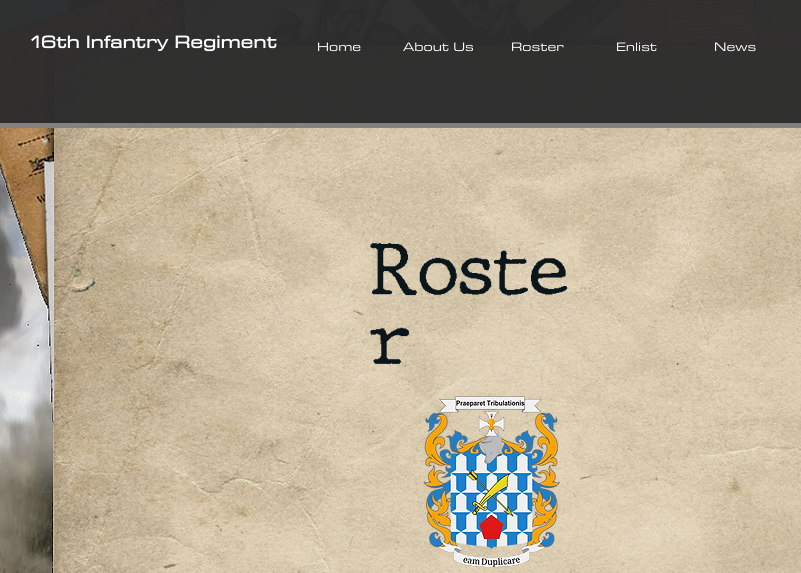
#include <cairo.h>
#include <math.h>
#include <stddef.h>

static cairo_t *ctx;

static void use_color(int r, int g, int b) {
    cairo_set_source_rgb(ctx, r / 255.0, g / 255.0, b / 255.0);
}

static void spaced_text(double x, double y, const char *s, double letter, double word) {
    cairo_move_to(ctx, x, y);
    while (*s) {
        char ch[5] = {0};
        int n = 0;
        do ch[n++] = *s++; while ((*s & 0xC0) == 0x80);
        cairo_show_text(ctx, ch);
        cairo_rel_move_to(ctx, letter + word * (*ch == ' '), 0);
    }
}

static void picture(const char *path, double x, double y, double w, double h) {
    cairo_surface_t *image = cairo_image_surface_create_from_png(path);
    cairo_save(ctx);
    cairo_set_source_surface(ctx, image, x, y);
    cairo_rectangle(ctx, x, y, w, h);
    cairo_fill(ctx);
    cairo_restore(ctx);
    cairo_surface_destroy(image);
}

int main(void) {
    cairo_surface_t *surface = cairo_image_surface_create(CAIRO_FORMAT_RGB24, 801, 573);
    ctx = cairo_create(surface);
    cairo_font_options_t *options = cairo_font_options_create();
    cairo_font_options_set_hint_metrics(options, CAIRO_HINT_METRICS_OFF);
    cairo_font_options_set_hint_style(options, CAIRO_HINT_STYLE_NONE);
    cairo_set_font_options(ctx, options);
    cairo_set_miter_limit(ctx, 4);
    use_color(255, 255, 255);
    cairo_paint(ctx);
    picture("img1.png", 0, 0, 801, 573);
    cairo_set_source_rgba(ctx, 0.176, 0.176, 0.176, 0.85);
    cairo_rectangle(ctx, 0, 0, 801, 123);
    cairo_fill(ctx);
    use_color(129, 129, 129);
    cairo_rectangle(ctx, 0, 123, 801, 5);
    cairo_fill(ctx);
    cairo_set_source_rgba(ctx, 0.176, 0.176, 0.176, 0.85);
    cairo_rectangle(ctx, 0, 0, 801, 123);
    cairo_fill(ctx);
    cairo_select_font_face(ctx, "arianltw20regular", CAIRO_FONT_SLANT_NORMAL, CAIRO_FONT_WEIGHT_BOLD);
    cairo_set_font_size(ctx, 21);
    use_color(255, 255, 255);
    spaced_text(31, 48, "16th Infantry Regiment", 0.25, 0);
    cairo_select_font_face(ctx, "arianltw20regular", CAIRO_FONT_SLANT_NORMAL, CAIRO_FONT_WEIGHT_NORMAL);
    cairo_set_font_size(ctx, 15);
    cairo_move_to(ctx, 317, 51);
    cairo_show_text(ctx, "Home");
    cairo_move_to(ctx, 403, 51);
    cairo_show_text(ctx, "About Us");
    cairo_move_to(ctx, 511, 51);
    cairo_show_text(ctx, "Roster");
    cairo_move_to(ctx, 616, 51);
    cairo_show_text(ctx, "Enlist");
    cairo_move_to(ctx, 714, 51);
    cairo_show_text(ctx, "News");
    cairo_select_font_face(ctx, "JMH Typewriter", CAIRO_FONT_SLANT_NORMAL, CAIRO_FONT_WEIGHT_NORMAL);
    cairo_set_font_size(ctx, 70);
    use_color(10, 21, 28);
    cairo_move_to(ctx, 369, 294);
    cairo_show_text(ctx, "Roste");
    cairo_move_to(ctx, 369, 364);
    cairo_show_text(ctx, "r");
    picture("img2.png", 423, 396, 137, 172);
    cairo_surface_write_to_png(surface, "result.png");
    cairo_font_options_destroy(options);
    cairo_destroy(ctx);
    cairo_surface_destroy(surface);
    return 0;
}
